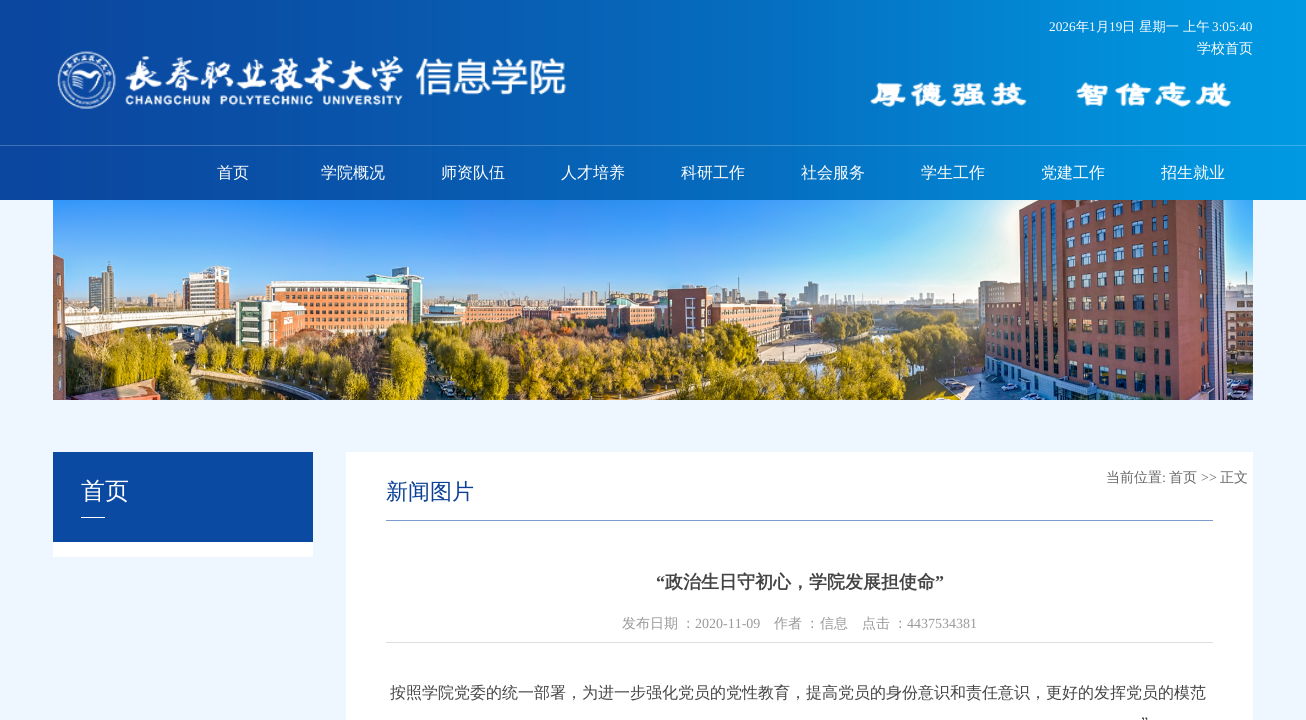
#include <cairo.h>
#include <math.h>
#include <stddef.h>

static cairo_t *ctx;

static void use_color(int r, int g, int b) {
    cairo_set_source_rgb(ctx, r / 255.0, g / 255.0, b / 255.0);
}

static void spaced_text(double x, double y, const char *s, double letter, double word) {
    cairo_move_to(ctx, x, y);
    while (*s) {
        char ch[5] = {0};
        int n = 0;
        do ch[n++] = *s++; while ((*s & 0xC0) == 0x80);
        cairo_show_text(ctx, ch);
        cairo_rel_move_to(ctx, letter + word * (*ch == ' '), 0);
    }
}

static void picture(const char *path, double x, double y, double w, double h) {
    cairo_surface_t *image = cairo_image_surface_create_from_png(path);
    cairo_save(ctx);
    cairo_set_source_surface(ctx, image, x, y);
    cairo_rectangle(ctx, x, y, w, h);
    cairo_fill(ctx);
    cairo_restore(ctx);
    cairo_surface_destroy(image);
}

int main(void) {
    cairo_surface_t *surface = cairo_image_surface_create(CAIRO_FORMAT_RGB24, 1306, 720);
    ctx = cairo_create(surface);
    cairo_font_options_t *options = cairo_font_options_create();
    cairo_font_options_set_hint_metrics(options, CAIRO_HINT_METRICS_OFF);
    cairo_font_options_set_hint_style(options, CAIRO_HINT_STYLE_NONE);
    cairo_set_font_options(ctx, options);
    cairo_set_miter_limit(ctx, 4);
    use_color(255, 255, 255);
    cairo_paint(ctx);
    picture("img1.png", 0, 0, 1306, 200);
    cairo_select_font_face(ctx, "Liberation Serif", CAIRO_FONT_SLANT_NORMAL, CAIRO_FONT_WEIGHT_NORMAL);
    cairo_set_font_size(ctx, 13.25);
    use_color(255, 255, 255);
    cairo_move_to(ctx, 1049, 31);
    cairo_show_text(ctx, "2026");
    cairo_select_font_face(ctx, "WenQuanYi Zen Hei Medium", CAIRO_FONT_SLANT_NORMAL, CAIRO_FONT_WEIGHT_NORMAL);
    cairo_move_to(ctx, 1076, 31);
    cairo_show_text(ctx, "年");
    cairo_select_font_face(ctx, "Liberation Serif", CAIRO_FONT_SLANT_NORMAL, CAIRO_FONT_WEIGHT_NORMAL);
    cairo_move_to(ctx, 1089, 31);
    cairo_show_text(ctx, "1");
    cairo_select_font_face(ctx, "WenQuanYi Zen Hei Medium", CAIRO_FONT_SLANT_NORMAL, CAIRO_FONT_WEIGHT_NORMAL);
    cairo_move_to(ctx, 1096, 31);
    cairo_show_text(ctx, "月");
    cairo_select_font_face(ctx, "Liberation Serif", CAIRO_FONT_SLANT_NORMAL, CAIRO_FONT_WEIGHT_NORMAL);
    cairo_move_to(ctx, 1109, 31);
    cairo_show_text(ctx, "19");
    cairo_select_font_face(ctx, "WenQuanYi Zen Hei Medium", CAIRO_FONT_SLANT_NORMAL, CAIRO_FONT_WEIGHT_NORMAL);
    cairo_move_to(ctx, 1122, 31);
    cairo_show_text(ctx, "日 星期一 上午");
    cairo_select_font_face(ctx, "Liberation Serif", CAIRO_FONT_SLANT_NORMAL, CAIRO_FONT_WEIGHT_NORMAL);
    cairo_move_to(ctx, 1212, 31);
    cairo_show_text(ctx, "3:05:40");
    cairo_select_font_face(ctx, "WenQuanYi Zen Hei Medium", CAIRO_FONT_SLANT_NORMAL, CAIRO_FONT_WEIGHT_NORMAL);
    cairo_set_font_size(ctx, 14);
    cairo_move_to(ctx, 1197, 53);
    cairo_show_text(ctx, "学校首页");
    picture("img2.png", 57, 51, 509, 58);
    picture("img3.png", 870, 82, 361, 26);
    cairo_set_font_size(ctx, 16);
    cairo_move_to(ctx, 217, 178);
    cairo_show_text(ctx, "首页");
    cairo_move_to(ctx, 321, 178);
    cairo_show_text(ctx, "学院概况");
    cairo_move_to(ctx, 441, 178);
    cairo_show_text(ctx, "师资队伍");
    cairo_move_to(ctx, 561, 178);
    cairo_show_text(ctx, "人才培养");
    cairo_move_to(ctx, 681, 178);
    cairo_show_text(ctx, "科研工作");
    cairo_move_to(ctx, 801, 178);
    cairo_show_text(ctx, "社会服务");
    cairo_move_to(ctx, 921, 178);
    cairo_show_text(ctx, "学生工作");
    cairo_move_to(ctx, 1041, 178);
    cairo_show_text(ctx, "党建工作");
    cairo_move_to(ctx, 1161, 178);
    cairo_show_text(ctx, "招生就业");
    use_color(238, 247, 255);
    cairo_rectangle(ctx, 0, 200, 1306, 520);
    cairo_fill(ctx);
    picture("img4.png", 53, 200, 1200, 200);
    use_color(255, 255, 255);
    cairo_rectangle(ctx, 346, 452, 907, 268);
    cairo_fill(ctx);
    cairo_set_font_size(ctx, 14);
    use_color(102, 102, 102);
    cairo_move_to(ctx, 1106, 482);
    cairo_show_text(ctx, "当前位置");
    cairo_select_font_face(ctx, "Liberation Serif", CAIRO_FONT_SLANT_NORMAL, CAIRO_FONT_WEIGHT_NORMAL);
    cairo_move_to(ctx, 1162, 482);
    cairo_show_text(ctx, ":");
    cairo_select_font_face(ctx, "WenQuanYi Zen Hei Medium", CAIRO_FONT_SLANT_NORMAL, CAIRO_FONT_WEIGHT_NORMAL);
    cairo_move_to(ctx, 1169, 482);
    cairo_show_text(ctx, "首页");
    cairo_select_font_face(ctx, "Liberation Serif", CAIRO_FONT_SLANT_NORMAL, CAIRO_FONT_WEIGHT_NORMAL);
    cairo_move_to(ctx, 1201, 482);
    cairo_show_text(ctx, ">>");
    cairo_select_font_face(ctx, "WenQuanYi Zen Hei Medium", CAIRO_FONT_SLANT_NORMAL, CAIRO_FONT_WEIGHT_NORMAL);
    cairo_move_to(ctx, 1220, 482);
    cairo_show_text(ctx, "正文");
    use_color(10, 74, 162);
    cairo_rectangle(ctx, 53, 452, 260, 90);
    cairo_fill(ctx);
    use_color(255, 255, 255);
    cairo_rectangle(ctx, 81, 517, 24, 1);
    cairo_fill(ctx);
    cairo_set_font_size(ctx, 24);
    cairo_move_to(ctx, 81, 499);
    cairo_show_text(ctx, "首页");
    cairo_rectangle(ctx, 53, 542, 260, 15);
    cairo_fill(ctx);
    use_color(123, 157, 205);
    cairo_rectangle(ctx, 386, 520, 827, 1);
    cairo_fill(ctx);
    cairo_set_font_size(ctx, 22);
    use_color(10, 63, 148);
    cairo_move_to(ctx, 386, 499);
    cairo_show_text(ctx, "新闻图片");
    cairo_select_font_face(ctx, "Liberation Serif", CAIRO_FONT_SLANT_NORMAL, CAIRO_FONT_WEIGHT_BOLD);
    cairo_set_font_size(ctx, 18);
    use_color(68, 68, 68);
    cairo_move_to(ctx, 656, 588);
    cairo_show_text(ctx, "“");
    cairo_select_font_face(ctx, "WenQuanYi Zen Hei", CAIRO_FONT_SLANT_NORMAL, CAIRO_FONT_WEIGHT_BOLD);
    cairo_move_to(ctx, 665, 588);
    cairo_show_text(ctx, "政治生日守初心，学院发展担使命");
    cairo_select_font_face(ctx, "Liberation Serif", CAIRO_FONT_SLANT_NORMAL, CAIRO_FONT_WEIGHT_BOLD);
    cairo_move_to(ctx, 935, 588);
    cairo_show_text(ctx, "”");
    use_color(221, 221, 221);
    cairo_rectangle(ctx, 386, 642, 827, 1);
    cairo_fill(ctx);
    cairo_select_font_face(ctx, "WenQuanYi Zen Hei Medium", CAIRO_FONT_SLANT_NORMAL, CAIRO_FONT_WEIGHT_NORMAL);
    cairo_set_font_size(ctx, 14);
    use_color(153, 153, 153);
    spaced_text(622, 628, "发布日期 ：", 0, -1);
    cairo_select_font_face(ctx, "Liberation Serif", CAIRO_FONT_SLANT_NORMAL, CAIRO_FONT_WEIGHT_NORMAL);
    cairo_move_to(ctx, 695, 628);
    cairo_show_text(ctx, "2020-11-09");
    cairo_select_font_face(ctx, "WenQuanYi Zen Hei Medium", CAIRO_FONT_SLANT_NORMAL, CAIRO_FONT_WEIGHT_NORMAL);
    spaced_text(774, 628, "作者 ：", 0, -1);
    cairo_move_to(ctx, 820, 628);
    cairo_show_text(ctx, "信息");
    spaced_text(862, 628, "点击 ：", 0, -1);
    cairo_select_font_face(ctx, "Liberation Serif", CAIRO_FONT_SLANT_NORMAL, CAIRO_FONT_WEIGHT_NORMAL);
    cairo_move_to(ctx, 907, 628);
    cairo_show_text(ctx, "4437534381");
    cairo_select_font_face(ctx, "WenQuanYi Zen Hei Medium", CAIRO_FONT_SLANT_NORMAL, CAIRO_FONT_WEIGHT_NORMAL);
    cairo_set_font_size(ctx, 16);
    use_color(68, 68, 68);
    cairo_move_to(ctx, 390, 698);
    cairo_show_text(ctx, "按照学院党委的统一部署，为进一步强化党员的党性教育，提高党员的身份意识和责任意识，更好的发挥党员的模范");
    cairo_select_font_face(ctx, "Liberation Serif", CAIRO_FONT_SLANT_NORMAL, CAIRO_FONT_WEIGHT_NORMAL);
    cairo_move_to(ctx, 1141, 728);
    cairo_show_text(ctx, "”");
    cairo_surface_write_to_png(surface, "result.png");
    cairo_font_options_destroy(options);
    cairo_destroy(ctx);
    cairo_surface_destroy(surface);
    return 0;
}
